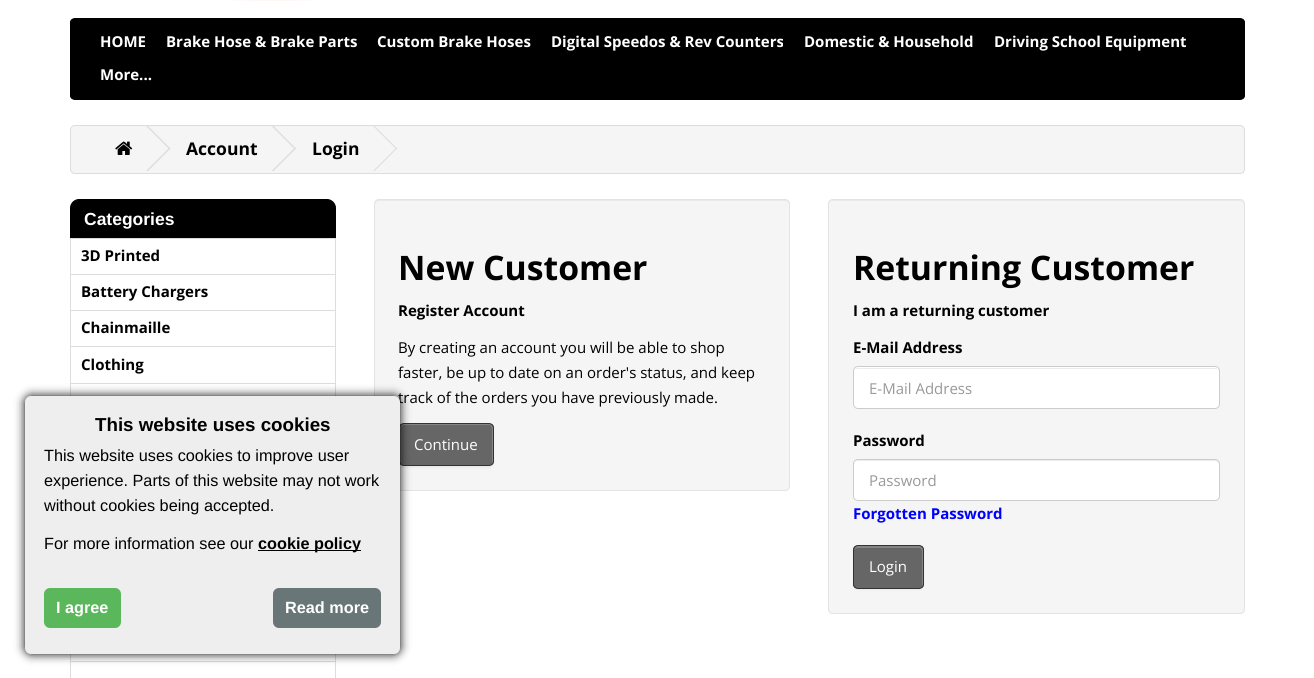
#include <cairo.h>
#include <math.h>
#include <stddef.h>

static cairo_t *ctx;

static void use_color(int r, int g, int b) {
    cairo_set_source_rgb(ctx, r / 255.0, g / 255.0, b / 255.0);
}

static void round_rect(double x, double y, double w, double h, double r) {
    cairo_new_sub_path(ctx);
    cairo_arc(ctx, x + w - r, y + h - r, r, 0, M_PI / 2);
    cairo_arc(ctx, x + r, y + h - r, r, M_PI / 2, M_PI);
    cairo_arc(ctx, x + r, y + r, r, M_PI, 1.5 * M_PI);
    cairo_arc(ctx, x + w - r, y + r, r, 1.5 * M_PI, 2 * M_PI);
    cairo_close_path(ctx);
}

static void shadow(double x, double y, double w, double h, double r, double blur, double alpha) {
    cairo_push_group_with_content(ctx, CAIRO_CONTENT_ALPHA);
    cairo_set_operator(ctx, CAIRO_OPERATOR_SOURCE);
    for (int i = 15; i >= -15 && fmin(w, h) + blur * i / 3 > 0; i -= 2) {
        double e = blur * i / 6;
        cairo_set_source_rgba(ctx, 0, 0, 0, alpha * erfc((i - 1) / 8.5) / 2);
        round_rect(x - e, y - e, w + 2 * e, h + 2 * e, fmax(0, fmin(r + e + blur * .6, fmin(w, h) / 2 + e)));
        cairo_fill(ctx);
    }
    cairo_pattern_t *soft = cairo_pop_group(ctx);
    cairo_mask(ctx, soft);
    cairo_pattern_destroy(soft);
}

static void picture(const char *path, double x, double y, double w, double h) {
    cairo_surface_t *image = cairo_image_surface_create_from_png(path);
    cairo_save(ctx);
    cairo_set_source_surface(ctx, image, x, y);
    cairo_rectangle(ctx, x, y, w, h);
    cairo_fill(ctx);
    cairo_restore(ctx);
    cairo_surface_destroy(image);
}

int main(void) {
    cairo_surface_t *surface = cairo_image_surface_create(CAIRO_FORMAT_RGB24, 1314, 678);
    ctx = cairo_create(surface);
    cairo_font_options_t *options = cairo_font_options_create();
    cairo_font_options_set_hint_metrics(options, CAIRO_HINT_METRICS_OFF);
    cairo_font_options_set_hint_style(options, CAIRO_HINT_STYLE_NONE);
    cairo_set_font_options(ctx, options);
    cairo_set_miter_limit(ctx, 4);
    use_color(255, 255, 255);
    cairo_paint(ctx);
    picture("img1.png", 231, 0, 82, 1);
    cairo_save(ctx);
    round_rect(70, 18, 1175, 82, 5);
    cairo_clip(ctx);
    use_color(0, 0, 0);
    cairo_rectangle(ctx, 70, 19, 1175, 80);
    cairo_fill(ctx);
    cairo_restore(ctx);
    round_rect(70.5, 18.5, 1174, 81, 4.5);
    use_color(0, 0, 0);
    cairo_set_line_width(ctx, 1);
    cairo_stroke(ctx);
    cairo_select_font_face(ctx, "Open Sans", CAIRO_FONT_SLANT_NORMAL, CAIRO_FONT_WEIGHT_BOLD);
    cairo_set_font_size(ctx, 15);
    use_color(255, 255, 255);
    cairo_move_to(ctx, 100, 47);
    cairo_show_text(ctx, "HOME");
    cairo_move_to(ctx, 166, 47);
    cairo_show_text(ctx, "Brake Hose & Brake Parts");
    cairo_move_to(ctx, 377, 47);
    cairo_show_text(ctx, "Custom Brake Hoses");
    cairo_move_to(ctx, 551, 47);
    cairo_show_text(ctx, "Digital Speedos & Rev Counters");
    cairo_move_to(ctx, 804, 47);
    cairo_show_text(ctx, "Domestic & Household");
    cairo_move_to(ctx, 994, 47);
    cairo_show_text(ctx, "Driving School Equipment");
    cairo_move_to(ctx, 100, 80);
    cairo_show_text(ctx, "More...");
    use_color(245, 245, 245);
    round_rect(70.5, 125.5, 1174, 48, 4.5);
    cairo_fill_preserve(ctx);
    use_color(221, 221, 221);
    cairo_stroke(ctx);
    picture("img2.png", 115, 141, 18, 14);
    cairo_new_path(ctx);
    cairo_move_to(ctx, 146.5, 126.5);
    cairo_line_to(ctx, 147.5, 125.5);
    cairo_line_to(ctx, 170.5, 148.5);
    cairo_line_to(ctx, 169.5, 149.5);
    cairo_close_path(ctx);
    cairo_fill(ctx);
    cairo_new_path(ctx);
    cairo_move_to(ctx, 146.5, 170.5);
    cairo_line_to(ctx, 169.5, 147.5);
    cairo_line_to(ctx, 170.5, 148.5);
    cairo_line_to(ctx, 147.5, 171.5);
    cairo_close_path(ctx);
    cairo_fill(ctx);
    cairo_set_font_size(ctx, 17.5);
    use_color(0, 0, 0);
    cairo_move_to(ctx, 186, 155);
    cairo_show_text(ctx, "Account");
    use_color(221, 221, 221);
    cairo_new_path(ctx);
    cairo_move_to(ctx, 272, 126.5);
    cairo_line_to(ctx, 273, 125.5);
    cairo_line_to(ctx, 296, 148.5);
    cairo_line_to(ctx, 295, 149.5);
    cairo_close_path(ctx);
    cairo_fill(ctx);
    cairo_new_path(ctx);
    cairo_move_to(ctx, 272, 170.5);
    cairo_line_to(ctx, 295, 147.5);
    cairo_line_to(ctx, 296, 148.5);
    cairo_line_to(ctx, 273, 171.5);
    cairo_close_path(ctx);
    cairo_fill(ctx);
    use_color(0, 0, 0);
    cairo_move_to(ctx, 312, 155);
    cairo_show_text(ctx, "Login");
    use_color(221, 221, 221);
    cairo_new_path(ctx);
    cairo_move_to(ctx, 373.5, 126.5);
    cairo_line_to(ctx, 374, 125.5);
    cairo_line_to(ctx, 397, 148.5);
    cairo_line_to(ctx, 396.5, 149.5);
    cairo_close_path(ctx);
    cairo_fill(ctx);
    cairo_new_path(ctx);
    cairo_move_to(ctx, 373.5, 170.5);
    cairo_line_to(ctx, 396.5, 147.5);
    cairo_line_to(ctx, 397, 148.5);
    cairo_line_to(ctx, 374, 171.5);
    cairo_close_path(ctx);
    cairo_fill(ctx);
    use_color(0, 0, 0);
    cairo_new_path(ctx);
    cairo_move_to(ctx, 79, 199.5);
    cairo_line_to(ctx, 327, 199.5);
    cairo_curve_to(ctx, 331.5, 199.5, 335.5, 203.5, 335.5, 208);
    cairo_line_to(ctx, 335.5, 237.5);
    cairo_line_to(ctx, 70.5, 237.5);
    cairo_line_to(ctx, 70.5, 208);
    cairo_curve_to(ctx, 70.5, 203.5, 74.5, 199.5, 79, 199.5);
    cairo_close_path(ctx);
    cairo_fill_preserve(ctx);
    cairo_stroke(ctx);
    cairo_select_font_face(ctx, "Liberation Sans", CAIRO_FONT_SLANT_NORMAL, CAIRO_FONT_WEIGHT_BOLD);
    use_color(255, 255, 255);
    cairo_move_to(ctx, 84, 225);
    cairo_show_text(ctx, "Categories");
    cairo_rectangle(ctx, 70.5, 238.5, 265, 36);
    use_color(221, 221, 221);
    cairo_stroke(ctx);
    cairo_select_font_face(ctx, "Open Sans", CAIRO_FONT_SLANT_NORMAL, CAIRO_FONT_WEIGHT_BOLD);
    cairo_set_font_size(ctx, 15);
    use_color(0, 0, 0);
    cairo_move_to(ctx, 81, 261);
    cairo_show_text(ctx, "3D Printed");
    cairo_rectangle(ctx, 70.5, 274.5, 265, 36);
    use_color(221, 221, 221);
    cairo_stroke(ctx);
    use_color(0, 0, 0);
    cairo_move_to(ctx, 81, 297);
    cairo_show_text(ctx, "Battery Chargers");
    cairo_rectangle(ctx, 70.5, 310.5, 265, 37);
    use_color(221, 221, 221);
    cairo_stroke(ctx);
    use_color(0, 0, 0);
    cairo_move_to(ctx, 81, 333);
    cairo_show_text(ctx, "Chainmaille");
    use_color(255, 255, 255);
    cairo_rectangle(ctx, 71, 347, 264, 1);
    cairo_fill(ctx);
    cairo_rectangle(ctx, 70.5, 346.5, 265, 37);
    use_color(221, 221, 221);
    cairo_stroke(ctx);
    use_color(0, 0, 0);
    cairo_move_to(ctx, 81, 370);
    cairo_show_text(ctx, "Clothing");
    cairo_rectangle(ctx, 70.5, 383.5, 265, 36);
    use_color(221, 221, 221);
    cairo_stroke(ctx);
    cairo_rectangle(ctx, 70.5, 625.5, 265, 37);
    cairo_stroke(ctx);
    use_color(255, 255, 255);
    cairo_rectangle(ctx, 71, 662, 264, 1);
    cairo_fill(ctx);
    cairo_rectangle(ctx, 70.5, 661.5, 265, 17);
    use_color(221, 221, 221);
    cairo_stroke(ctx);
    use_color(245, 245, 245);
    round_rect(374, 199, 416, 292, 5);
    cairo_fill(ctx);
    use_color(233, 233, 233);
    cairo_new_path(ctx);
    cairo_move_to(ctx, 379, 201);
    cairo_line_to(ctx, 785, 201);
    cairo_curve_to(ctx, 787, 201, 789, 203, 789, 205);
    cairo_line_to(ctx, 789, 204);
    cairo_curve_to(ctx, 789, 202, 787, 200, 785, 200);
    cairo_line_to(ctx, 379, 200);
    cairo_curve_to(ctx, 377, 200, 375, 202, 375, 204);
    cairo_line_to(ctx, 375, 205);
    cairo_curve_to(ctx, 375, 203, 377, 201, 379, 201);
    cairo_close_path(ctx);
    cairo_fill(ctx);
    round_rect(374.5, 199.5, 415, 291, 4.5);
    use_color(227, 227, 227);
    cairo_stroke(ctx);
    cairo_set_font_size(ctx, 33.75);
    use_color(0, 0, 0);
    cairo_move_to(ctx, 398, 280);
    cairo_show_text(ctx, "New Customer");
    cairo_set_font_size(ctx, 15);
    cairo_move_to(ctx, 398, 316);
    cairo_show_text(ctx, "Register Account");
    cairo_select_font_face(ctx, "Open Sans", CAIRO_FONT_SLANT_NORMAL, CAIRO_FONT_WEIGHT_NORMAL);
    cairo_move_to(ctx, 398, 353);
    cairo_show_text(ctx, "By creating an account you will be able to shop");
    cairo_move_to(ctx, 398, 378);
    cairo_show_text(ctx, "faster, be up to date on an order's status, and keep");
    cairo_move_to(ctx, 398, 403);
    cairo_show_text(ctx, "track of the orders you have previously made.");
    use_color(0, 0, 0);
    shadow(399, 424, 95, 44, 5, 1, 0.05);
    cairo_save(ctx);
    round_rect(399, 423, 95, 43, 5);
    cairo_clip(ctx);
    use_color(102, 102, 102);
    cairo_rectangle(ctx, 400, 424, 94, 41);
    cairo_fill(ctx);
    cairo_restore(ctx);
    use_color(133, 133, 133);
    cairo_new_path(ctx);
    cairo_move_to(ctx, 404, 425);
    cairo_line_to(ctx, 489, 425);
    cairo_curve_to(ctx, 493, 425, 492, 433, 492, 434);
    cairo_line_to(ctx, 492, 464);
    cairo_curve_to(ctx, 493, 463, 493, 462, 493, 461);
    cairo_line_to(ctx, 493, 428);
    cairo_curve_to(ctx, 493, 426, 491, 424, 489, 424);
    cairo_line_to(ctx, 404, 424);
    cairo_curve_to(ctx, 402, 424, 400, 426, 400, 428);
    cairo_line_to(ctx, 400, 429);
    cairo_curve_to(ctx, 400, 427, 402, 425, 404, 425);
    cairo_close_path(ctx);
    cairo_fill(ctx);
    round_rect(399.5, 423.5, 94, 42, 4.5);
    use_color(51, 51, 51);
    cairo_stroke(ctx);
    use_color(255, 255, 255);
    cairo_move_to(ctx, 414, 450);
    cairo_show_text(ctx, "Continue");
    use_color(245, 245, 245);
    round_rect(828, 199, 417, 415, 5);
    cairo_fill(ctx);
    use_color(233, 233, 233);
    cairo_new_path(ctx);
    cairo_move_to(ctx, 832, 201);
    cairo_line_to(ctx, 1240, 201);
    cairo_curve_to(ctx, 1242, 201, 1244, 203, 1244, 205);
    cairo_line_to(ctx, 1244, 204);
    cairo_curve_to(ctx, 1244, 202, 1242, 200, 1240, 200);
    cairo_line_to(ctx, 833, 200);
    cairo_curve_to(ctx, 831, 200, 829, 202, 829, 204);
    cairo_line_to(ctx, 829, 205);
    cairo_curve_to(ctx, 829, 203, 830, 201, 832, 201);
    cairo_close_path(ctx);
    cairo_fill(ctx);
    round_rect(828.5, 199.5, 416, 414, 4.5);
    use_color(227, 227, 227);
    cairo_stroke(ctx);
    cairo_select_font_face(ctx, "Open Sans", CAIRO_FONT_SLANT_NORMAL, CAIRO_FONT_WEIGHT_BOLD);
    cairo_set_font_size(ctx, 33.75);
    use_color(0, 0, 0);
    cairo_move_to(ctx, 853, 280);
    cairo_show_text(ctx, "Returning Customer");
    cairo_set_font_size(ctx, 15);
    cairo_move_to(ctx, 853, 316);
    cairo_show_text(ctx, "I am a returning customer");
    cairo_move_to(ctx, 853, 353);
    cairo_show_text(ctx, "E-Mail Address");
    use_color(255, 255, 255);
    round_rect(853, 366, 367, 43, 5);
    cairo_fill(ctx);
    use_color(236, 236, 236);
    cairo_new_path(ctx);
    cairo_move_to(ctx, 858, 369);
    cairo_line_to(ctx, 1215, 369);
    cairo_curve_to(ctx, 1217, 369, 1219, 370, 1219, 372);
    cairo_curve_to(ctx, 1219, 370, 1217, 368, 1215, 368);
    cairo_line_to(ctx, 858, 368);
    cairo_curve_to(ctx, 856, 368, 855, 369, 854, 370);
    cairo_curve_to(ctx, 855, 369, 856, 369, 858, 369);
    cairo_close_path(ctx);
    cairo_fill(ctx);
    round_rect(853.5, 366.5, 366, 42, 4.5);
    use_color(204, 204, 204);
    cairo_stroke(ctx);
    cairo_select_font_face(ctx, "Open Sans", CAIRO_FONT_SLANT_NORMAL, CAIRO_FONT_WEIGHT_NORMAL);
    use_color(153, 153, 153);
    cairo_move_to(ctx, 869, 394);
    cairo_show_text(ctx, "E-Mail Address");
    cairo_select_font_face(ctx, "Open Sans", CAIRO_FONT_SLANT_NORMAL, CAIRO_FONT_WEIGHT_BOLD);
    use_color(0, 0, 0);
    cairo_move_to(ctx, 853, 446);
    cairo_show_text(ctx, "Password");
    use_color(255, 255, 255);
    round_rect(853, 459, 367, 42, 5);
    cairo_fill(ctx);
    use_color(236, 236, 236);
    cairo_new_path(ctx);
    cairo_move_to(ctx, 858, 461);
    cairo_line_to(ctx, 1215, 461);
    cairo_curve_to(ctx, 1217, 461, 1219, 463, 1219, 465);
    cairo_curve_to(ctx, 1219, 462, 1218, 460, 1215, 460);
    cairo_line_to(ctx, 857, 460);
    cairo_line_to(ctx, 855, 462);
    cairo_line_to(ctx, 854, 465);
    cairo_curve_to(ctx, 854, 463, 855, 461, 858, 461);
    cairo_close_path(ctx);
    cairo_fill(ctx);
    round_rect(853.5, 459.5, 366, 41, 4.5);
    use_color(204, 204, 204);
    cairo_stroke(ctx);
    cairo_select_font_face(ctx, "Open Sans", CAIRO_FONT_SLANT_NORMAL, CAIRO_FONT_WEIGHT_NORMAL);
    use_color(153, 153, 153);
    cairo_move_to(ctx, 869, 486);
    cairo_show_text(ctx, "Password");
    cairo_select_font_face(ctx, "Open Sans", CAIRO_FONT_SLANT_NORMAL, CAIRO_FONT_WEIGHT_BOLD);
    use_color(0, 0, 255);
    cairo_move_to(ctx, 853, 519);
    cairo_show_text(ctx, "Forgotten Password");
    use_color(0, 0, 0);
    shadow(853, 546, 71, 44, 5, 1, 0.05);
    cairo_save(ctx);
    round_rect(853, 545, 71, 44, 5);
    cairo_clip(ctx);
    use_color(102, 102, 102);
    cairo_rectangle(ctx, 853, 546, 71, 42);
    cairo_fill(ctx);
    cairo_restore(ctx);
    use_color(133, 133, 133);
    cairo_new_path(ctx);
    cairo_move_to(ctx, 858, 548);
    cairo_line_to(ctx, 919, 548);
    cairo_curve_to(ctx, 923, 548, 922, 554, 922, 557);
    cairo_line_to(ctx, 922, 587);
    cairo_curve_to(ctx, 922, 586, 923, 585, 923, 584);
    cairo_line_to(ctx, 923, 550);
    cairo_curve_to(ctx, 923, 548, 921, 546, 919, 546);
    cairo_line_to(ctx, 858, 546);
    cairo_curve_to(ctx, 856, 546, 854, 548, 854, 550);
    cairo_line_to(ctx, 854, 551);
    cairo_curve_to(ctx, 854, 549, 855, 548, 858, 548);
    cairo_close_path(ctx);
    cairo_fill(ctx);
    round_rect(853.5, 545.5, 70, 43, 4.5);
    use_color(51, 51, 51);
    cairo_stroke(ctx);
    cairo_select_font_face(ctx, "Open Sans", CAIRO_FONT_SLANT_NORMAL, CAIRO_FONT_WEIGHT_NORMAL);
    use_color(255, 255, 255);
    cairo_move_to(ctx, 869, 572);
    cairo_show_text(ctx, "Login");
    use_color(0, 0, 0);
    shadow(25, 396, 375, 258, 6, 5, 1);
    use_color(238, 238, 238);
    round_rect(25, 396, 375, 258, 6);
    cairo_fill(ctx);
    cairo_select_font_face(ctx, "Liberation Sans", CAIRO_FONT_SLANT_NORMAL, CAIRO_FONT_WEIGHT_BOLD);
    cairo_set_font_size(ctx, 18.75);
    use_color(0, 0, 0);
    cairo_move_to(ctx, 95, 431);
    cairo_show_text(ctx, "This website uses cookies");
    cairo_select_font_face(ctx, "Liberation Sans", CAIRO_FONT_SLANT_NORMAL, CAIRO_FONT_WEIGHT_NORMAL);
    cairo_set_font_size(ctx, 16.25);
    cairo_move_to(ctx, 44, 461);
    cairo_show_text(ctx, "This website uses cookies to improve user");
    cairo_move_to(ctx, 44, 486);
    cairo_show_text(ctx, "experience. Parts of this website may not work");
    cairo_move_to(ctx, 44, 511);
    cairo_show_text(ctx, "without cookies being accepted.");
    cairo_move_to(ctx, 44, 549);
    cairo_show_text(ctx, "For more information see our");
    cairo_rectangle(ctx, 258, 550, 103, 1);
    cairo_fill(ctx);
    cairo_select_font_face(ctx, "Liberation Sans", CAIRO_FONT_SLANT_NORMAL, CAIRO_FONT_WEIGHT_BOLD);
    cairo_move_to(ctx, 258, 549);
    cairo_show_text(ctx, "cookie policy");
    use_color(91, 183, 91);
    round_rect(44, 588, 77, 40, 6);
    cairo_fill(ctx);
    use_color(255, 255, 255);
    cairo_move_to(ctx, 56, 613);
    cairo_show_text(ctx, "I agree");
    use_color(105, 118, 119);
    round_rect(273, 588, 108, 40, 6);
    cairo_fill(ctx);
    use_color(255, 255, 255);
    cairo_move_to(ctx, 285, 613);
    cairo_show_text(ctx, "Read more");
    cairo_surface_write_to_png(surface, "result.png");
    cairo_font_options_destroy(options);
    cairo_destroy(ctx);
    cairo_surface_destroy(surface);
    return 0;
}
